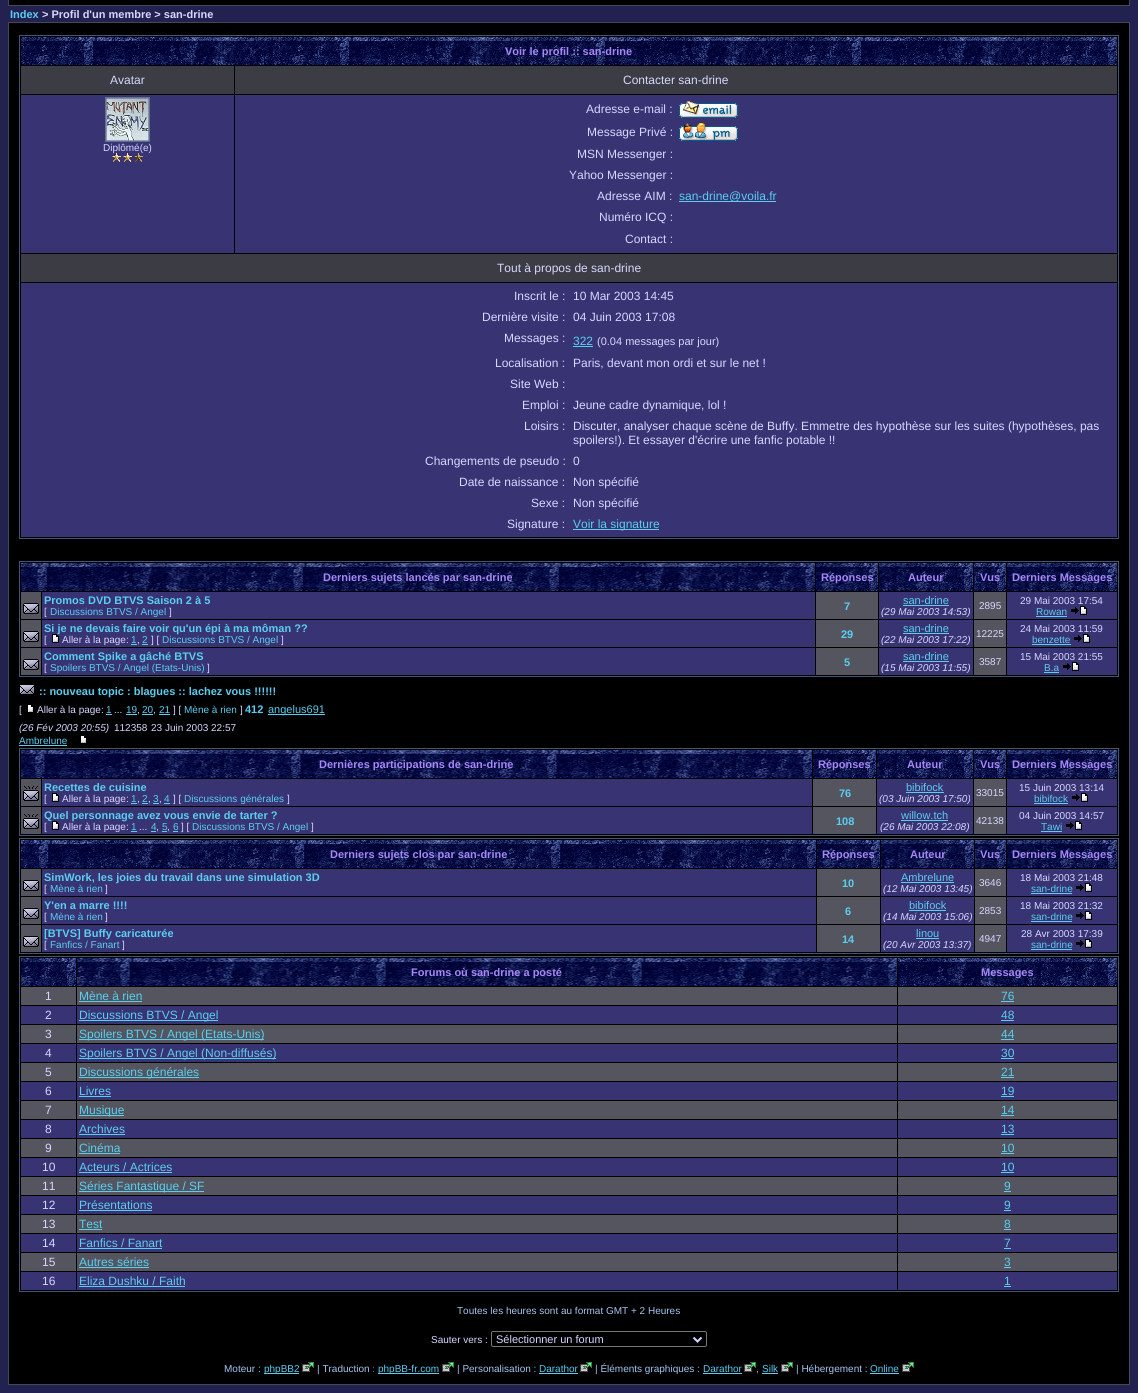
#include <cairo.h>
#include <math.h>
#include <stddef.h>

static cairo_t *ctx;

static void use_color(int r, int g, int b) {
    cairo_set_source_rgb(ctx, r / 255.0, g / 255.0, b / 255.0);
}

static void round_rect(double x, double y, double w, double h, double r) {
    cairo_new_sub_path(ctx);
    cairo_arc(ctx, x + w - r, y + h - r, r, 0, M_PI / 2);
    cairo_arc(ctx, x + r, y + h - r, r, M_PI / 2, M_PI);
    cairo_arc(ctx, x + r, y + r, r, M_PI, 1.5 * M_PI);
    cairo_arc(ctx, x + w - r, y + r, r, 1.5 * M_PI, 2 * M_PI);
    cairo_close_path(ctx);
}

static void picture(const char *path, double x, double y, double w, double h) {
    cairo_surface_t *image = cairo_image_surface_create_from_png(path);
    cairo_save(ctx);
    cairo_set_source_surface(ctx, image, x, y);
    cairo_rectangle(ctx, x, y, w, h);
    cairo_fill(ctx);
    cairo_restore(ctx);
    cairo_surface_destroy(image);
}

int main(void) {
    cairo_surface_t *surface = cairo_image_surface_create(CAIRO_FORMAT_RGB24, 1138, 1393);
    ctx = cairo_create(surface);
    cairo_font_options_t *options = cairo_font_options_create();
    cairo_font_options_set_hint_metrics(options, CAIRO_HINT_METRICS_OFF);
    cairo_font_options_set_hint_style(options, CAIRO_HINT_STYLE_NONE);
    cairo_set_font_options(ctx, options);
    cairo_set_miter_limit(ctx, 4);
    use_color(35, 33, 80);
    cairo_paint(ctx);
    use_color(0, 0, 0);
    cairo_rectangle(ctx, 8.5, -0.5, 1121, 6);
    cairo_fill_preserve(ctx);
    use_color(60, 75, 90);
    cairo_set_line_width(ctx, 1);
    cairo_stroke(ctx);
    cairo_select_font_face(ctx, "Liberation Sans", CAIRO_FONT_SLANT_NORMAL, CAIRO_FONT_WEIGHT_BOLD);
    cairo_set_font_size(ctx, 11);
    use_color(89, 206, 240);
    cairo_move_to(ctx, 10, 18);
    cairo_show_text(ctx, "Index");
    use_color(214, 214, 255);
    cairo_move_to(ctx, 42, 18);
    cairo_show_text(ctx, "> Profil d'un membre > san-drine");
    use_color(0, 0, 0);
    cairo_rectangle(ctx, 8.5, 22.5, 1121, 1362);
    cairo_fill_preserve(ctx);
    use_color(60, 75, 90);
    cairo_stroke(ctx);
    cairo_rectangle(ctx, 19.5, 35.5, 1099, 503);
    use_color(66, 85, 116);
    cairo_stroke(ctx);
    picture("img1.png", 21, 37, 1096, 28);
    use_color(167, 135, 247);
    cairo_move_to(ctx, 505, 55);
    cairo_show_text(ctx, "Voir le profil :: san-drine");
    use_color(60, 61, 68);
    cairo_rectangle(ctx, 21, 66, 213, 28);
    cairo_fill(ctx);
    cairo_select_font_face(ctx, "Liberation Sans", CAIRO_FONT_SLANT_NORMAL, CAIRO_FONT_WEIGHT_NORMAL);
    cairo_set_font_size(ctx, 12);
    use_color(214, 214, 255);
    cairo_move_to(ctx, 110, 84);
    cairo_show_text(ctx, "Avatar");
    use_color(60, 61, 68);
    cairo_rectangle(ctx, 235, 66, 882, 28);
    cairo_fill(ctx);
    use_color(214, 214, 255);
    cairo_move_to(ctx, 623, 84);
    cairo_show_text(ctx, "Contacter san-drine");
    use_color(56, 51, 115);
    cairo_rectangle(ctx, 21, 95, 213, 158);
    cairo_fill(ctx);
    picture("img2.png", 105, 97, 45, 45);
    cairo_set_font_size(ctx, 10);
    use_color(214, 214, 255);
    cairo_move_to(ctx, 103, 151);
    cairo_show_text(ctx, "Diplômé(e)");
    picture("img3.png", 112, 153, 31, 9);
    use_color(56, 51, 115);
    cairo_rectangle(ctx, 235, 95, 882, 158);
    cairo_fill(ctx);
    cairo_set_font_size(ctx, 12);
    use_color(214, 214, 255);
    cairo_move_to(ctx, 586, 113);
    cairo_show_text(ctx, "Adresse e-mail :");
    picture("img4.png", 679, 101, 59, 17);
    cairo_move_to(ctx, 587, 136);
    cairo_show_text(ctx, "Message Privé :");
    picture("img5.png", 679, 123, 59, 18);
    cairo_move_to(ctx, 577, 158);
    cairo_show_text(ctx, "MSN Messenger :");
    cairo_move_to(ctx, 569, 179);
    cairo_show_text(ctx, "Yahoo Messenger :");
    cairo_move_to(ctx, 597, 200);
    cairo_show_text(ctx, "Adresse AIM :");
    use_color(89, 206, 240);
    cairo_rectangle(ctx, 679, 201, 97, 1);
    cairo_fill(ctx);
    cairo_move_to(ctx, 679, 200);
    cairo_show_text(ctx, "san-drine@voila.fr");
    use_color(214, 214, 255);
    cairo_move_to(ctx, 599, 221);
    cairo_show_text(ctx, "Numéro ICQ :");
    cairo_move_to(ctx, 625, 243);
    cairo_show_text(ctx, "Contact :");
    use_color(60, 61, 68);
    cairo_rectangle(ctx, 21, 254, 1096, 28);
    cairo_fill(ctx);
    use_color(214, 214, 255);
    cairo_move_to(ctx, 497, 272);
    cairo_show_text(ctx, "Tout à propos de san-drine");
    use_color(56, 51, 115);
    cairo_rectangle(ctx, 21, 283, 1096, 254);
    cairo_fill(ctx);
    use_color(214, 214, 255);
    cairo_move_to(ctx, 514, 300);
    cairo_show_text(ctx, "Inscrit le :");
    cairo_move_to(ctx, 573, 300);
    cairo_show_text(ctx, "10 Mar 2003 14:45");
    cairo_move_to(ctx, 482, 321);
    cairo_show_text(ctx, "Dernière visite :");
    cairo_move_to(ctx, 573, 321);
    cairo_show_text(ctx, "04 Juin 2003 17:08");
    cairo_move_to(ctx, 504, 342);
    cairo_show_text(ctx, "Messages :");
    use_color(89, 206, 240);
    cairo_move_to(ctx, 573, 345);
    cairo_show_text(ctx, "322");
    cairo_rectangle(ctx, 573, 346, 20, 1);
    cairo_fill(ctx);
    cairo_set_font_size(ctx, 11);
    use_color(214, 214, 255);
    cairo_move_to(ctx, 597, 345);
    cairo_show_text(ctx, "(0.04 messages par jour)");
    cairo_set_font_size(ctx, 12);
    cairo_move_to(ctx, 495, 367);
    cairo_show_text(ctx, "Localisation :");
    cairo_move_to(ctx, 573, 367);
    cairo_show_text(ctx, "Paris, devant mon ordi et sur le net !");
    cairo_move_to(ctx, 510, 388);
    cairo_show_text(ctx, "Site Web :");
    cairo_move_to(ctx, 522, 409);
    cairo_show_text(ctx, "Emploi :");
    cairo_move_to(ctx, 573, 409);
    cairo_show_text(ctx, "Jeune cadre dynamique, lol !");
    cairo_move_to(ctx, 524, 430);
    cairo_show_text(ctx, "Loisirs :");
    cairo_move_to(ctx, 573, 430);
    cairo_show_text(ctx, "Discuter, analyser chaque scène de Buffy. Emmetre des hypothèse sur les suites (hypothèses, pas");
    cairo_move_to(ctx, 573, 444);
    cairo_show_text(ctx, "spoilers!). Et essayer d'écrire une fanfic potable !!");
    cairo_move_to(ctx, 425, 465);
    cairo_show_text(ctx, "Changements de pseudo :");
    cairo_move_to(ctx, 573, 465);
    cairo_show_text(ctx, "0");
    cairo_move_to(ctx, 459, 486);
    cairo_show_text(ctx, "Date de naissance :");
    cairo_move_to(ctx, 573, 486);
    cairo_show_text(ctx, "Non spécifié");
    cairo_move_to(ctx, 531, 507);
    cairo_show_text(ctx, "Sexe :");
    cairo_move_to(ctx, 573, 507);
    cairo_show_text(ctx, "Non spécifié");
    cairo_move_to(ctx, 507, 528);
    cairo_show_text(ctx, "Signature :");
    use_color(89, 206, 240);
    cairo_rectangle(ctx, 573, 529, 86, 1);
    cairo_fill(ctx);
    cairo_move_to(ctx, 573, 528);
    cairo_show_text(ctx, "Voir la signature");
    cairo_rectangle(ctx, 19.5, 561.5, 1099, 115);
    use_color(66, 85, 116);
    cairo_stroke(ctx);
    picture("img6.png", 21, 563, 794, 28);
    cairo_select_font_face(ctx, "Liberation Sans", CAIRO_FONT_SLANT_NORMAL, CAIRO_FONT_WEIGHT_BOLD);
    cairo_set_font_size(ctx, 11);
    use_color(167, 135, 247);
    cairo_move_to(ctx, 323, 581);
    cairo_show_text(ctx, "Derniers sujets lancés par san-drine");
    picture("img7.png", 816, 563, 62, 28);
    cairo_move_to(ctx, 821, 581);
    cairo_show_text(ctx, "Réponses");
    picture("img8.png", 879, 563, 94, 28);
    cairo_move_to(ctx, 908, 581);
    cairo_show_text(ctx, "Auteur");
    picture("img9.png", 974, 563, 32, 28);
    cairo_move_to(ctx, 980, 581);
    cairo_show_text(ctx, "Vus");
    picture("img10.png", 1007, 563, 110, 28);
    cairo_move_to(ctx, 1012, 581);
    cairo_show_text(ctx, "Derniers Messages");
    use_color(84, 85, 94);
    cairo_rectangle(ctx, 21, 592, 20, 27);
    cairo_fill(ctx);
    picture("img11.png", 23, 603, 16, 11);
    use_color(56, 51, 115);
    cairo_rectangle(ctx, 42, 592, 773, 27);
    cairo_fill(ctx);
    use_color(89, 206, 240);
    cairo_move_to(ctx, 44, 604);
    cairo_show_text(ctx, "Promos DVD BTVS Saison 2 à 5");
    cairo_select_font_face(ctx, "Liberation Sans", CAIRO_FONT_SLANT_NORMAL, CAIRO_FONT_WEIGHT_NORMAL);
    cairo_set_font_size(ctx, 10);
    use_color(214, 214, 255);
    cairo_move_to(ctx, 44, 615);
    cairo_show_text(ctx, "[");
    use_color(89, 206, 240);
    cairo_move_to(ctx, 50, 615);
    cairo_show_text(ctx, "Discussions BTVS / Angel");
    use_color(214, 214, 255);
    cairo_move_to(ctx, 169, 615);
    cairo_show_text(ctx, "]");
    use_color(84, 85, 94);
    cairo_rectangle(ctx, 816, 592, 62, 27);
    cairo_fill(ctx);
    cairo_select_font_face(ctx, "Liberation Sans", CAIRO_FONT_SLANT_NORMAL, CAIRO_FONT_WEIGHT_BOLD);
    cairo_set_font_size(ctx, 11);
    use_color(89, 206, 240);
    cairo_move_to(ctx, 844, 610);
    cairo_show_text(ctx, "7");
    use_color(56, 51, 115);
    cairo_rectangle(ctx, 879, 592, 94, 27);
    cairo_fill(ctx);
    cairo_select_font_face(ctx, "Liberation Sans", CAIRO_FONT_SLANT_NORMAL, CAIRO_FONT_WEIGHT_NORMAL);
    use_color(89, 206, 240);
    cairo_move_to(ctx, 903, 604);
    cairo_show_text(ctx, "san-drine");
    cairo_rectangle(ctx, 903, 605, 46, 1);
    cairo_fill(ctx);
    cairo_select_font_face(ctx, "Liberation Sans", CAIRO_FONT_SLANT_ITALIC, CAIRO_FONT_WEIGHT_NORMAL);
    cairo_set_font_size(ctx, 10);
    use_color(214, 214, 255);
    cairo_move_to(ctx, 881, 615);
    cairo_show_text(ctx, "(29 Mai 2003 14:53)");
    use_color(84, 85, 94);
    cairo_rectangle(ctx, 974, 592, 32, 27);
    cairo_fill(ctx);
    cairo_select_font_face(ctx, "Liberation Sans", CAIRO_FONT_SLANT_NORMAL, CAIRO_FONT_WEIGHT_NORMAL);
    use_color(214, 214, 255);
    cairo_move_to(ctx, 979, 609);
    cairo_show_text(ctx, "2895");
    use_color(56, 51, 115);
    cairo_rectangle(ctx, 1007, 592, 110, 27);
    cairo_fill(ctx);
    use_color(214, 214, 255);
    cairo_move_to(ctx, 1020, 604);
    cairo_show_text(ctx, "29 Mai 2003 17:54");
    use_color(89, 206, 240);
    cairo_move_to(ctx, 1036, 615);
    cairo_show_text(ctx, "Rowan");
    cairo_rectangle(ctx, 1036, 616, 31, 1);
    cairo_fill(ctx);
    picture("img12.png", 1071, 606, 16, 9);
    use_color(84, 85, 94);
    cairo_rectangle(ctx, 21, 620, 20, 27);
    cairo_fill(ctx);
    picture("img11.png", 23, 631, 16, 11);
    use_color(56, 51, 115);
    cairo_rectangle(ctx, 42, 620, 773, 27);
    cairo_fill(ctx);
    cairo_select_font_face(ctx, "Liberation Sans", CAIRO_FONT_SLANT_NORMAL, CAIRO_FONT_WEIGHT_BOLD);
    cairo_set_font_size(ctx, 11);
    use_color(89, 206, 240);
    cairo_move_to(ctx, 44, 632);
    cairo_show_text(ctx, "Si je ne devais faire voir qu'un épi à ma môman ?\077");
    cairo_select_font_face(ctx, "Liberation Sans", CAIRO_FONT_SLANT_NORMAL, CAIRO_FONT_WEIGHT_NORMAL);
    cairo_set_font_size(ctx, 10);
    use_color(214, 214, 255);
    cairo_move_to(ctx, 44, 643);
    cairo_show_text(ctx, "[");
    picture("img13.png", 52, 634, 7, 9);
    cairo_move_to(ctx, 62, 643);
    cairo_show_text(ctx, "Aller à la page:");
    use_color(89, 206, 240);
    cairo_move_to(ctx, 131, 643);
    cairo_show_text(ctx, "1");
    use_color(214, 214, 255);
    cairo_move_to(ctx, 137, 643);
    cairo_show_text(ctx, ",");
    use_color(89, 206, 240);
    cairo_rectangle(ctx, 131, 644, 6, 1);
    cairo_fill(ctx);
    cairo_rectangle(ctx, 142, 644, 6, 1);
    cairo_fill(ctx);
    cairo_move_to(ctx, 142, 643);
    cairo_show_text(ctx, "2");
    use_color(214, 214, 255);
    cairo_move_to(ctx, 151, 643);
    cairo_show_text(ctx, "] [");
    use_color(89, 206, 240);
    cairo_move_to(ctx, 162, 643);
    cairo_show_text(ctx, "Discussions BTVS / Angel");
    use_color(214, 214, 255);
    cairo_move_to(ctx, 281, 643);
    cairo_show_text(ctx, "]");
    use_color(84, 85, 94);
    cairo_rectangle(ctx, 816, 620, 62, 27);
    cairo_fill(ctx);
    cairo_select_font_face(ctx, "Liberation Sans", CAIRO_FONT_SLANT_NORMAL, CAIRO_FONT_WEIGHT_BOLD);
    cairo_set_font_size(ctx, 11);
    use_color(89, 206, 240);
    cairo_move_to(ctx, 841, 638);
    cairo_show_text(ctx, "29");
    use_color(56, 51, 115);
    cairo_rectangle(ctx, 879, 620, 94, 27);
    cairo_fill(ctx);
    cairo_select_font_face(ctx, "Liberation Sans", CAIRO_FONT_SLANT_NORMAL, CAIRO_FONT_WEIGHT_NORMAL);
    use_color(89, 206, 240);
    cairo_move_to(ctx, 903, 632);
    cairo_show_text(ctx, "san-drine");
    cairo_rectangle(ctx, 903, 633, 46, 1);
    cairo_fill(ctx);
    cairo_select_font_face(ctx, "Liberation Sans", CAIRO_FONT_SLANT_ITALIC, CAIRO_FONT_WEIGHT_NORMAL);
    cairo_set_font_size(ctx, 10);
    use_color(214, 214, 255);
    cairo_move_to(ctx, 881, 643);
    cairo_show_text(ctx, "(22 Mai 2003 17:22)");
    use_color(84, 85, 94);
    cairo_rectangle(ctx, 974, 620, 32, 27);
    cairo_fill(ctx);
    cairo_select_font_face(ctx, "Liberation Sans", CAIRO_FONT_SLANT_NORMAL, CAIRO_FONT_WEIGHT_NORMAL);
    use_color(214, 214, 255);
    cairo_move_to(ctx, 976, 637);
    cairo_show_text(ctx, "12225");
    use_color(56, 51, 115);
    cairo_rectangle(ctx, 1007, 620, 110, 27);
    cairo_fill(ctx);
    use_color(214, 214, 255);
    cairo_move_to(ctx, 1020, 632);
    cairo_show_text(ctx, "24 Mai 2003 11:59");
    use_color(89, 206, 240);
    cairo_move_to(ctx, 1032, 643);
    cairo_show_text(ctx, "benzette");
    cairo_rectangle(ctx, 1032, 644, 39, 1);
    cairo_fill(ctx);
    picture("img12.png", 1074, 634, 16, 9);
    use_color(84, 85, 94);
    cairo_rectangle(ctx, 21, 648, 20, 27);
    cairo_fill(ctx);
    picture("img11.png", 23, 659, 16, 11);
    use_color(56, 51, 115);
    cairo_rectangle(ctx, 42, 648, 773, 27);
    cairo_fill(ctx);
    cairo_select_font_face(ctx, "Liberation Sans", CAIRO_FONT_SLANT_NORMAL, CAIRO_FONT_WEIGHT_BOLD);
    cairo_set_font_size(ctx, 11);
    use_color(89, 206, 240);
    cairo_move_to(ctx, 44, 660);
    cairo_show_text(ctx, "Comment Spike a gâché BTVS");
    cairo_select_font_face(ctx, "Liberation Sans", CAIRO_FONT_SLANT_NORMAL, CAIRO_FONT_WEIGHT_NORMAL);
    cairo_set_font_size(ctx, 10);
    use_color(214, 214, 255);
    cairo_move_to(ctx, 44, 671);
    cairo_show_text(ctx, "[");
    use_color(89, 206, 240);
    cairo_move_to(ctx, 50, 671);
    cairo_show_text(ctx, "Spoilers BTVS / Angel (Etats-Unis)");
    use_color(214, 214, 255);
    cairo_move_to(ctx, 207, 671);
    cairo_show_text(ctx, "]");
    use_color(84, 85, 94);
    cairo_rectangle(ctx, 816, 648, 62, 27);
    cairo_fill(ctx);
    cairo_select_font_face(ctx, "Liberation Sans", CAIRO_FONT_SLANT_NORMAL, CAIRO_FONT_WEIGHT_BOLD);
    cairo_set_font_size(ctx, 11);
    use_color(89, 206, 240);
    cairo_move_to(ctx, 844, 666);
    cairo_show_text(ctx, "5");
    use_color(56, 51, 115);
    cairo_rectangle(ctx, 879, 648, 94, 27);
    cairo_fill(ctx);
    cairo_select_font_face(ctx, "Liberation Sans", CAIRO_FONT_SLANT_NORMAL, CAIRO_FONT_WEIGHT_NORMAL);
    use_color(89, 206, 240);
    cairo_move_to(ctx, 903, 660);
    cairo_show_text(ctx, "san-drine");
    cairo_rectangle(ctx, 903, 661, 46, 1);
    cairo_fill(ctx);
    cairo_select_font_face(ctx, "Liberation Sans", CAIRO_FONT_SLANT_ITALIC, CAIRO_FONT_WEIGHT_NORMAL);
    cairo_set_font_size(ctx, 10);
    use_color(214, 214, 255);
    cairo_move_to(ctx, 881, 671);
    cairo_show_text(ctx, "(15 Mai 2003 11:55)");
    use_color(84, 85, 94);
    cairo_rectangle(ctx, 974, 648, 32, 27);
    cairo_fill(ctx);
    cairo_select_font_face(ctx, "Liberation Sans", CAIRO_FONT_SLANT_NORMAL, CAIRO_FONT_WEIGHT_NORMAL);
    use_color(214, 214, 255);
    cairo_move_to(ctx, 979, 665);
    cairo_show_text(ctx, "3587");
    use_color(56, 51, 115);
    cairo_rectangle(ctx, 1007, 648, 110, 27);
    cairo_fill(ctx);
    use_color(214, 214, 255);
    cairo_move_to(ctx, 1020, 660);
    cairo_show_text(ctx, "15 Mai 2003 21:55");
    use_color(89, 206, 240);
    cairo_move_to(ctx, 1044, 671);
    cairo_show_text(ctx, "B.a");
    cairo_rectangle(ctx, 1044, 672, 15, 1);
    cairo_fill(ctx);
    picture("img12.png", 1063, 662, 16, 9);
    picture("img14.png", 20, 685, 14, 9);
    cairo_select_font_face(ctx, "Liberation Sans", CAIRO_FONT_SLANT_NORMAL, CAIRO_FONT_WEIGHT_BOLD);
    cairo_set_font_size(ctx, 11);
    cairo_move_to(ctx, 39, 695);
    cairo_show_text(ctx, ":: nouveau topic : blagues :: lachez vous !!!!!!");
    cairo_select_font_face(ctx, "Liberation Sans", CAIRO_FONT_SLANT_NORMAL, CAIRO_FONT_WEIGHT_NORMAL);
    cairo_set_font_size(ctx, 10);
    use_color(214, 214, 255);
    cairo_move_to(ctx, 19, 713);
    cairo_show_text(ctx, "[");
    picture("img15.png", 28, 705, 5, 7);
    cairo_move_to(ctx, 37, 713);
    cairo_show_text(ctx, "Aller à la page:");
    use_color(89, 206, 240);
    cairo_move_to(ctx, 106, 713);
    cairo_show_text(ctx, "1");
    use_color(214, 214, 255);
    cairo_move_to(ctx, 114, 713);
    cairo_show_text(ctx, "...");
    use_color(89, 206, 240);
    cairo_rectangle(ctx, 106, 714, 6, 1);
    cairo_fill(ctx);
    cairo_move_to(ctx, 126, 713);
    cairo_show_text(ctx, "19");
    use_color(214, 214, 255);
    cairo_move_to(ctx, 137, 713);
    cairo_show_text(ctx, ",");
    use_color(89, 206, 240);
    cairo_rectangle(ctx, 126, 714, 11, 1);
    cairo_fill(ctx);
    cairo_move_to(ctx, 142, 713);
    cairo_show_text(ctx, "20");
    use_color(214, 214, 255);
    cairo_move_to(ctx, 153, 713);
    cairo_show_text(ctx, ",");
    use_color(89, 206, 240);
    cairo_rectangle(ctx, 142, 714, 11, 1);
    cairo_fill(ctx);
    cairo_rectangle(ctx, 159, 714, 11, 1);
    cairo_fill(ctx);
    cairo_move_to(ctx, 159, 713);
    cairo_show_text(ctx, "21");
    use_color(214, 214, 255);
    cairo_move_to(ctx, 173, 713);
    cairo_show_text(ctx, "] [");
    use_color(89, 206, 240);
    cairo_move_to(ctx, 184, 713);
    cairo_show_text(ctx, "Mène à rien");
    use_color(214, 214, 255);
    cairo_move_to(ctx, 240, 713);
    cairo_show_text(ctx, "]");
    cairo_select_font_face(ctx, "Liberation Sans", CAIRO_FONT_SLANT_NORMAL, CAIRO_FONT_WEIGHT_BOLD);
    cairo_set_font_size(ctx, 11);
    use_color(89, 206, 240);
    cairo_move_to(ctx, 245, 713);
    cairo_show_text(ctx, "412");
    cairo_rectangle(ctx, 268, 714, 57, 1);
    cairo_fill(ctx);
    cairo_select_font_face(ctx, "Liberation Sans", CAIRO_FONT_SLANT_NORMAL, CAIRO_FONT_WEIGHT_NORMAL);
    cairo_move_to(ctx, 268, 713);
    cairo_show_text(ctx, "angelus691");
    cairo_select_font_face(ctx, "Liberation Sans", CAIRO_FONT_SLANT_ITALIC, CAIRO_FONT_WEIGHT_NORMAL);
    cairo_set_font_size(ctx, 10);
    use_color(214, 214, 255);
    cairo_move_to(ctx, 19, 731);
    cairo_show_text(ctx, "(26 Fév 2003 20:55)");
    cairo_select_font_face(ctx, "Liberation Sans", CAIRO_FONT_SLANT_NORMAL, CAIRO_FONT_WEIGHT_NORMAL);
    cairo_move_to(ctx, 114, 731);
    cairo_show_text(ctx, "112358");
    cairo_move_to(ctx, 151, 731);
    cairo_show_text(ctx, "23 Juin 2003 22:57");
    use_color(89, 206, 240);
    cairo_move_to(ctx, 19, 744);
    cairo_show_text(ctx, "Ambrelune");
    cairo_rectangle(ctx, 19, 745, 48, 1);
    cairo_fill(ctx);
    picture("img16.png", 81, 736, 5, 7);
    cairo_rectangle(ctx, 19.5, 748.5, 1099, 87);
    use_color(66, 85, 116);
    cairo_stroke(ctx);
    picture("img17.png", 21, 750, 791, 28);
    cairo_select_font_face(ctx, "Liberation Sans", CAIRO_FONT_SLANT_NORMAL, CAIRO_FONT_WEIGHT_BOLD);
    cairo_set_font_size(ctx, 11);
    use_color(167, 135, 247);
    cairo_move_to(ctx, 319, 768);
    cairo_show_text(ctx, "Dernières participations de san-drine");
    picture("img18.png", 813, 750, 63, 28);
    cairo_move_to(ctx, 818, 768);
    cairo_show_text(ctx, "Réponses");
    picture("img19.png", 877, 750, 96, 28);
    cairo_move_to(ctx, 907, 768);
    cairo_show_text(ctx, "Auteur");
    picture("img9.png", 974, 750, 32, 28);
    cairo_move_to(ctx, 980, 768);
    cairo_show_text(ctx, "Vus");
    picture("img10.png", 1007, 750, 110, 28);
    cairo_move_to(ctx, 1012, 768);
    cairo_show_text(ctx, "Derniers Messages");
    use_color(84, 85, 94);
    cairo_rectangle(ctx, 21, 779, 20, 27);
    cairo_fill(ctx);
    picture("img20.png", 23, 786, 16, 15);
    use_color(56, 51, 115);
    cairo_rectangle(ctx, 42, 779, 770, 27);
    cairo_fill(ctx);
    use_color(89, 206, 240);
    cairo_move_to(ctx, 44, 791);
    cairo_show_text(ctx, "Recettes de cuisine");
    cairo_select_font_face(ctx, "Liberation Sans", CAIRO_FONT_SLANT_NORMAL, CAIRO_FONT_WEIGHT_NORMAL);
    cairo_set_font_size(ctx, 10);
    use_color(214, 214, 255);
    cairo_move_to(ctx, 44, 802);
    cairo_show_text(ctx, "[");
    picture("img21.png", 52, 793, 7, 9);
    cairo_move_to(ctx, 62, 802);
    cairo_show_text(ctx, "Aller à la page:");
    use_color(89, 206, 240);
    cairo_move_to(ctx, 131, 802);
    cairo_show_text(ctx, "1");
    use_color(214, 214, 255);
    cairo_move_to(ctx, 137, 802);
    cairo_show_text(ctx, ",");
    use_color(89, 206, 240);
    cairo_rectangle(ctx, 131, 803, 6, 1);
    cairo_fill(ctx);
    cairo_move_to(ctx, 142, 802);
    cairo_show_text(ctx, "2");
    use_color(214, 214, 255);
    cairo_move_to(ctx, 148, 802);
    cairo_show_text(ctx, ",");
    use_color(89, 206, 240);
    cairo_rectangle(ctx, 142, 803, 6, 1);
    cairo_fill(ctx);
    cairo_move_to(ctx, 153, 802);
    cairo_show_text(ctx, "3");
    use_color(214, 214, 255);
    cairo_move_to(ctx, 159, 802);
    cairo_show_text(ctx, ",");
    use_color(89, 206, 240);
    cairo_rectangle(ctx, 153, 803, 6, 1);
    cairo_fill(ctx);
    cairo_rectangle(ctx, 164, 803, 6, 1);
    cairo_fill(ctx);
    cairo_move_to(ctx, 164, 802);
    cairo_show_text(ctx, "4");
    use_color(214, 214, 255);
    cairo_move_to(ctx, 173, 802);
    cairo_show_text(ctx, "] [");
    use_color(89, 206, 240);
    cairo_move_to(ctx, 184, 802);
    cairo_show_text(ctx, "Discussions générales");
    use_color(214, 214, 255);
    cairo_move_to(ctx, 287, 802);
    cairo_show_text(ctx, "]");
    use_color(84, 85, 94);
    cairo_rectangle(ctx, 813, 779, 63, 27);
    cairo_fill(ctx);
    cairo_select_font_face(ctx, "Liberation Sans", CAIRO_FONT_SLANT_NORMAL, CAIRO_FONT_WEIGHT_BOLD);
    cairo_set_font_size(ctx, 11);
    use_color(89, 206, 240);
    cairo_move_to(ctx, 839, 797);
    cairo_show_text(ctx, "76");
    use_color(56, 51, 115);
    cairo_rectangle(ctx, 877, 779, 96, 27);
    cairo_fill(ctx);
    cairo_select_font_face(ctx, "Liberation Sans", CAIRO_FONT_SLANT_NORMAL, CAIRO_FONT_WEIGHT_NORMAL);
    use_color(89, 206, 240);
    cairo_move_to(ctx, 906, 791);
    cairo_show_text(ctx, "bibifock");
    cairo_rectangle(ctx, 906, 792, 38, 1);
    cairo_fill(ctx);
    cairo_select_font_face(ctx, "Liberation Sans", CAIRO_FONT_SLANT_ITALIC, CAIRO_FONT_WEIGHT_NORMAL);
    cairo_set_font_size(ctx, 10);
    use_color(214, 214, 255);
    cairo_move_to(ctx, 879, 802);
    cairo_show_text(ctx, "(03 Juin 2003 17:50)");
    use_color(84, 85, 94);
    cairo_rectangle(ctx, 974, 779, 32, 27);
    cairo_fill(ctx);
    cairo_select_font_face(ctx, "Liberation Sans", CAIRO_FONT_SLANT_NORMAL, CAIRO_FONT_WEIGHT_NORMAL);
    use_color(214, 214, 255);
    cairo_move_to(ctx, 976, 796);
    cairo_show_text(ctx, "33015");
    use_color(56, 51, 115);
    cairo_rectangle(ctx, 1007, 779, 110, 27);
    cairo_fill(ctx);
    use_color(214, 214, 255);
    cairo_move_to(ctx, 1019, 791);
    cairo_show_text(ctx, "15 Juin 2003 13:14");
    use_color(89, 206, 240);
    cairo_move_to(ctx, 1034, 802);
    cairo_show_text(ctx, "bibifock");
    cairo_rectangle(ctx, 1034, 803, 34, 1);
    cairo_fill(ctx);
    picture("img12.png", 1072, 793, 16, 9);
    use_color(84, 85, 94);
    cairo_rectangle(ctx, 21, 807, 20, 27);
    cairo_fill(ctx);
    picture("img20.png", 23, 814, 16, 15);
    use_color(56, 51, 115);
    cairo_rectangle(ctx, 42, 807, 770, 27);
    cairo_fill(ctx);
    cairo_select_font_face(ctx, "Liberation Sans", CAIRO_FONT_SLANT_NORMAL, CAIRO_FONT_WEIGHT_BOLD);
    cairo_set_font_size(ctx, 11);
    use_color(89, 206, 240);
    cairo_move_to(ctx, 44, 819);
    cairo_show_text(ctx, "Quel personnage avez vous envie de tarter ?");
    cairo_select_font_face(ctx, "Liberation Sans", CAIRO_FONT_SLANT_NORMAL, CAIRO_FONT_WEIGHT_NORMAL);
    cairo_set_font_size(ctx, 10);
    use_color(214, 214, 255);
    cairo_move_to(ctx, 44, 830);
    cairo_show_text(ctx, "[");
    picture("img21.png", 52, 821, 7, 9);
    cairo_move_to(ctx, 62, 830);
    cairo_show_text(ctx, "Aller à la page:");
    use_color(89, 206, 240);
    cairo_move_to(ctx, 131, 830);
    cairo_show_text(ctx, "1");
    use_color(214, 214, 255);
    cairo_move_to(ctx, 139, 830);
    cairo_show_text(ctx, "...");
    use_color(89, 206, 240);
    cairo_rectangle(ctx, 131, 831, 6, 1);
    cairo_fill(ctx);
    cairo_move_to(ctx, 151, 830);
    cairo_show_text(ctx, "4");
    use_color(214, 214, 255);
    cairo_move_to(ctx, 156, 830);
    cairo_show_text(ctx, ",");
    use_color(89, 206, 240);
    cairo_rectangle(ctx, 151, 831, 5, 1);
    cairo_fill(ctx);
    cairo_move_to(ctx, 162, 830);
    cairo_show_text(ctx, "5");
    use_color(214, 214, 255);
    cairo_move_to(ctx, 167, 830);
    cairo_show_text(ctx, ",");
    use_color(89, 206, 240);
    cairo_rectangle(ctx, 162, 831, 5, 1);
    cairo_fill(ctx);
    cairo_rectangle(ctx, 173, 831, 5, 1);
    cairo_fill(ctx);
    cairo_move_to(ctx, 173, 830);
    cairo_show_text(ctx, "6");
    use_color(214, 214, 255);
    cairo_move_to(ctx, 181, 830);
    cairo_show_text(ctx, "] [");
    use_color(89, 206, 240);
    cairo_move_to(ctx, 192, 830);
    cairo_show_text(ctx, "Discussions BTVS / Angel");
    use_color(214, 214, 255);
    cairo_move_to(ctx, 311, 830);
    cairo_show_text(ctx, "]");
    use_color(84, 85, 94);
    cairo_rectangle(ctx, 813, 807, 63, 27);
    cairo_fill(ctx);
    cairo_select_font_face(ctx, "Liberation Sans", CAIRO_FONT_SLANT_NORMAL, CAIRO_FONT_WEIGHT_BOLD);
    cairo_set_font_size(ctx, 11);
    use_color(89, 206, 240);
    cairo_move_to(ctx, 836, 825);
    cairo_show_text(ctx, "108");
    use_color(56, 51, 115);
    cairo_rectangle(ctx, 877, 807, 96, 27);
    cairo_fill(ctx);
    cairo_select_font_face(ctx, "Liberation Sans", CAIRO_FONT_SLANT_NORMAL, CAIRO_FONT_WEIGHT_NORMAL);
    use_color(89, 206, 240);
    cairo_move_to(ctx, 901, 819);
    cairo_show_text(ctx, "willow.tch");
    cairo_rectangle(ctx, 901, 820, 47, 1);
    cairo_fill(ctx);
    cairo_select_font_face(ctx, "Liberation Sans", CAIRO_FONT_SLANT_ITALIC, CAIRO_FONT_WEIGHT_NORMAL);
    cairo_set_font_size(ctx, 10);
    use_color(214, 214, 255);
    cairo_move_to(ctx, 880, 830);
    cairo_show_text(ctx, "(26 Mai 2003 22:08)");
    use_color(84, 85, 94);
    cairo_rectangle(ctx, 974, 807, 32, 27);
    cairo_fill(ctx);
    cairo_select_font_face(ctx, "Liberation Sans", CAIRO_FONT_SLANT_NORMAL, CAIRO_FONT_WEIGHT_NORMAL);
    use_color(214, 214, 255);
    cairo_move_to(ctx, 976, 824);
    cairo_show_text(ctx, "42138");
    use_color(56, 51, 115);
    cairo_rectangle(ctx, 1007, 807, 110, 27);
    cairo_fill(ctx);
    use_color(214, 214, 255);
    cairo_move_to(ctx, 1019, 819);
    cairo_show_text(ctx, "04 Juin 2003 14:57");
    use_color(89, 206, 240);
    cairo_move_to(ctx, 1041, 830);
    cairo_show_text(ctx, "Tawi");
    cairo_rectangle(ctx, 1041, 831, 21, 1);
    cairo_fill(ctx);
    picture("img12.png", 1066, 821, 16, 9);
    cairo_rectangle(ctx, 19.5, 838.5, 1099, 115);
    use_color(66, 85, 116);
    cairo_stroke(ctx);
    picture("img22.png", 21, 840, 795, 28);
    cairo_select_font_face(ctx, "Liberation Sans", CAIRO_FONT_SLANT_NORMAL, CAIRO_FONT_WEIGHT_BOLD);
    cairo_set_font_size(ctx, 11);
    use_color(167, 135, 247);
    cairo_move_to(ctx, 330, 858);
    cairo_show_text(ctx, "Derniers sujets clos par san-drine");
    picture("img18.png", 817, 840, 63, 28);
    cairo_move_to(ctx, 822, 858);
    cairo_show_text(ctx, "Réponses");
    picture("img23.png", 881, 840, 93, 28);
    cairo_move_to(ctx, 910, 858);
    cairo_show_text(ctx, "Auteur");
    picture("img24.png", 975, 840, 31, 28);
    cairo_move_to(ctx, 980, 858);
    cairo_show_text(ctx, "Vus");
    picture("img10.png", 1007, 840, 110, 28);
    cairo_move_to(ctx, 1012, 858);
    cairo_show_text(ctx, "Derniers Messages");
    use_color(84, 85, 94);
    cairo_rectangle(ctx, 21, 869, 20, 27);
    cairo_fill(ctx);
    picture("img11.png", 23, 880, 16, 11);
    use_color(56, 51, 115);
    cairo_rectangle(ctx, 42, 869, 774, 27);
    cairo_fill(ctx);
    use_color(89, 206, 240);
    cairo_move_to(ctx, 44, 881);
    cairo_show_text(ctx, "SimWork, les joies du travail dans une simulation 3D");
    cairo_select_font_face(ctx, "Liberation Sans", CAIRO_FONT_SLANT_NORMAL, CAIRO_FONT_WEIGHT_NORMAL);
    cairo_set_font_size(ctx, 10);
    use_color(214, 214, 255);
    cairo_move_to(ctx, 44, 892);
    cairo_show_text(ctx, "[");
    use_color(89, 206, 240);
    cairo_move_to(ctx, 50, 892);
    cairo_show_text(ctx, "Mène à rien");
    use_color(214, 214, 255);
    cairo_move_to(ctx, 105, 892);
    cairo_show_text(ctx, "]");
    use_color(84, 85, 94);
    cairo_rectangle(ctx, 817, 869, 63, 27);
    cairo_fill(ctx);
    cairo_select_font_face(ctx, "Liberation Sans", CAIRO_FONT_SLANT_NORMAL, CAIRO_FONT_WEIGHT_BOLD);
    cairo_set_font_size(ctx, 11);
    use_color(89, 206, 240);
    cairo_move_to(ctx, 842, 887);
    cairo_show_text(ctx, "10");
    use_color(56, 51, 115);
    cairo_rectangle(ctx, 881, 869, 93, 27);
    cairo_fill(ctx);
    cairo_select_font_face(ctx, "Liberation Sans", CAIRO_FONT_SLANT_NORMAL, CAIRO_FONT_WEIGHT_NORMAL);
    use_color(89, 206, 240);
    cairo_move_to(ctx, 901, 881);
    cairo_show_text(ctx, "Ambrelune");
    cairo_rectangle(ctx, 901, 882, 53, 1);
    cairo_fill(ctx);
    cairo_select_font_face(ctx, "Liberation Sans", CAIRO_FONT_SLANT_ITALIC, CAIRO_FONT_WEIGHT_NORMAL);
    cairo_set_font_size(ctx, 10);
    use_color(214, 214, 255);
    cairo_move_to(ctx, 883, 892);
    cairo_show_text(ctx, "(12 Mai 2003 13:45)");
    use_color(84, 85, 94);
    cairo_rectangle(ctx, 975, 869, 31, 27);
    cairo_fill(ctx);
    cairo_select_font_face(ctx, "Liberation Sans", CAIRO_FONT_SLANT_NORMAL, CAIRO_FONT_WEIGHT_NORMAL);
    use_color(214, 214, 255);
    cairo_move_to(ctx, 979, 886);
    cairo_show_text(ctx, "3646");
    use_color(56, 51, 115);
    cairo_rectangle(ctx, 1007, 869, 110, 27);
    cairo_fill(ctx);
    use_color(214, 214, 255);
    cairo_move_to(ctx, 1020, 881);
    cairo_show_text(ctx, "18 Mai 2003 21:48");
    use_color(89, 206, 240);
    cairo_move_to(ctx, 1031, 892);
    cairo_show_text(ctx, "san-drine");
    cairo_rectangle(ctx, 1031, 893, 41, 1);
    cairo_fill(ctx);
    picture("img12.png", 1076, 883, 16, 9);
    use_color(84, 85, 94);
    cairo_rectangle(ctx, 21, 897, 20, 27);
    cairo_fill(ctx);
    picture("img11.png", 23, 908, 16, 11);
    use_color(56, 51, 115);
    cairo_rectangle(ctx, 42, 897, 774, 27);
    cairo_fill(ctx);
    cairo_select_font_face(ctx, "Liberation Sans", CAIRO_FONT_SLANT_NORMAL, CAIRO_FONT_WEIGHT_BOLD);
    cairo_set_font_size(ctx, 11);
    use_color(89, 206, 240);
    cairo_move_to(ctx, 44, 909);
    cairo_show_text(ctx, "Y'en a marre !!!!");
    cairo_select_font_face(ctx, "Liberation Sans", CAIRO_FONT_SLANT_NORMAL, CAIRO_FONT_WEIGHT_NORMAL);
    cairo_set_font_size(ctx, 10);
    use_color(214, 214, 255);
    cairo_move_to(ctx, 44, 920);
    cairo_show_text(ctx, "[");
    use_color(89, 206, 240);
    cairo_move_to(ctx, 50, 920);
    cairo_show_text(ctx, "Mène à rien");
    use_color(214, 214, 255);
    cairo_move_to(ctx, 105, 920);
    cairo_show_text(ctx, "]");
    use_color(84, 85, 94);
    cairo_rectangle(ctx, 817, 897, 63, 27);
    cairo_fill(ctx);
    cairo_select_font_face(ctx, "Liberation Sans", CAIRO_FONT_SLANT_NORMAL, CAIRO_FONT_WEIGHT_BOLD);
    cairo_set_font_size(ctx, 11);
    use_color(89, 206, 240);
    cairo_move_to(ctx, 845, 915);
    cairo_show_text(ctx, "6");
    use_color(56, 51, 115);
    cairo_rectangle(ctx, 881, 897, 93, 27);
    cairo_fill(ctx);
    cairo_select_font_face(ctx, "Liberation Sans", CAIRO_FONT_SLANT_NORMAL, CAIRO_FONT_WEIGHT_NORMAL);
    use_color(89, 206, 240);
    cairo_move_to(ctx, 909, 909);
    cairo_show_text(ctx, "bibifock");
    cairo_rectangle(ctx, 909, 910, 37, 1);
    cairo_fill(ctx);
    cairo_select_font_face(ctx, "Liberation Sans", CAIRO_FONT_SLANT_ITALIC, CAIRO_FONT_WEIGHT_NORMAL);
    cairo_set_font_size(ctx, 10);
    use_color(214, 214, 255);
    cairo_move_to(ctx, 883, 920);
    cairo_show_text(ctx, "(14 Mai 2003 15:06)");
    use_color(84, 85, 94);
    cairo_rectangle(ctx, 975, 897, 31, 27);
    cairo_fill(ctx);
    cairo_select_font_face(ctx, "Liberation Sans", CAIRO_FONT_SLANT_NORMAL, CAIRO_FONT_WEIGHT_NORMAL);
    use_color(214, 214, 255);
    cairo_move_to(ctx, 979, 914);
    cairo_show_text(ctx, "2853");
    use_color(56, 51, 115);
    cairo_rectangle(ctx, 1007, 897, 110, 27);
    cairo_fill(ctx);
    use_color(214, 214, 255);
    cairo_move_to(ctx, 1020, 909);
    cairo_show_text(ctx, "18 Mai 2003 21:32");
    use_color(89, 206, 240);
    cairo_move_to(ctx, 1031, 920);
    cairo_show_text(ctx, "san-drine");
    cairo_rectangle(ctx, 1031, 921, 41, 1);
    cairo_fill(ctx);
    picture("img12.png", 1076, 911, 16, 9);
    use_color(84, 85, 94);
    cairo_rectangle(ctx, 21, 925, 20, 27);
    cairo_fill(ctx);
    picture("img11.png", 23, 936, 16, 11);
    use_color(56, 51, 115);
    cairo_rectangle(ctx, 42, 925, 774, 27);
    cairo_fill(ctx);
    cairo_select_font_face(ctx, "Liberation Sans", CAIRO_FONT_SLANT_NORMAL, CAIRO_FONT_WEIGHT_BOLD);
    cairo_set_font_size(ctx, 11);
    use_color(89, 206, 240);
    cairo_move_to(ctx, 44, 937);
    cairo_show_text(ctx, "[BTVS] Buffy caricaturée");
    cairo_select_font_face(ctx, "Liberation Sans", CAIRO_FONT_SLANT_NORMAL, CAIRO_FONT_WEIGHT_NORMAL);
    cairo_set_font_size(ctx, 10);
    use_color(214, 214, 255);
    cairo_move_to(ctx, 44, 948);
    cairo_show_text(ctx, "[");
    use_color(89, 206, 240);
    cairo_move_to(ctx, 50, 948);
    cairo_show_text(ctx, "Fanfics / Fanart");
    use_color(214, 214, 255);
    cairo_move_to(ctx, 122, 948);
    cairo_show_text(ctx, "]");
    use_color(84, 85, 94);
    cairo_rectangle(ctx, 817, 925, 63, 27);
    cairo_fill(ctx);
    cairo_select_font_face(ctx, "Liberation Sans", CAIRO_FONT_SLANT_NORMAL, CAIRO_FONT_WEIGHT_BOLD);
    cairo_set_font_size(ctx, 11);
    use_color(89, 206, 240);
    cairo_move_to(ctx, 842, 943);
    cairo_show_text(ctx, "14");
    use_color(56, 51, 115);
    cairo_rectangle(ctx, 881, 925, 93, 27);
    cairo_fill(ctx);
    cairo_select_font_face(ctx, "Liberation Sans", CAIRO_FONT_SLANT_NORMAL, CAIRO_FONT_WEIGHT_NORMAL);
    use_color(89, 206, 240);
    cairo_move_to(ctx, 916, 937);
    cairo_show_text(ctx, "linou");
    cairo_rectangle(ctx, 916, 938, 23, 1);
    cairo_fill(ctx);
    cairo_select_font_face(ctx, "Liberation Sans", CAIRO_FONT_SLANT_ITALIC, CAIRO_FONT_WEIGHT_NORMAL);
    cairo_set_font_size(ctx, 10);
    use_color(214, 214, 255);
    cairo_move_to(ctx, 883, 948);
    cairo_show_text(ctx, "(20 Avr 2003 13:37)");
    use_color(84, 85, 94);
    cairo_rectangle(ctx, 975, 925, 31, 27);
    cairo_fill(ctx);
    cairo_select_font_face(ctx, "Liberation Sans", CAIRO_FONT_SLANT_NORMAL, CAIRO_FONT_WEIGHT_NORMAL);
    use_color(214, 214, 255);
    cairo_move_to(ctx, 979, 942);
    cairo_show_text(ctx, "4947");
    use_color(56, 51, 115);
    cairo_rectangle(ctx, 1007, 925, 110, 27);
    cairo_fill(ctx);
    use_color(214, 214, 255);
    cairo_move_to(ctx, 1021, 937);
    cairo_show_text(ctx, "28 Avr 2003 17:39");
    use_color(89, 206, 240);
    cairo_move_to(ctx, 1031, 948);
    cairo_show_text(ctx, "san-drine");
    cairo_rectangle(ctx, 1031, 949, 41, 1);
    cairo_fill(ctx);
    picture("img12.png", 1076, 939, 16, 9);
    cairo_rectangle(ctx, 19.5, 956.5, 1099, 335);
    use_color(66, 85, 116);
    cairo_stroke(ctx);
    picture("img25.png", 21, 958, 55, 28);
    picture("img26.png", 77, 958, 820, 28);
    cairo_select_font_face(ctx, "Liberation Sans", CAIRO_FONT_SLANT_NORMAL, CAIRO_FONT_WEIGHT_BOLD);
    cairo_set_font_size(ctx, 11);
    use_color(167, 135, 247);
    cairo_move_to(ctx, 411, 976);
    cairo_show_text(ctx, "Forums où san-drine a posté");
    picture("img27.png", 898, 958, 219, 28);
    cairo_move_to(ctx, 981, 976);
    cairo_show_text(ctx, "Messages");
    use_color(84, 85, 94);
    cairo_rectangle(ctx, 21, 987, 55, 18);
    cairo_fill(ctx);
    cairo_select_font_face(ctx, "Liberation Sans", CAIRO_FONT_SLANT_NORMAL, CAIRO_FONT_WEIGHT_NORMAL);
    cairo_set_font_size(ctx, 12);
    use_color(214, 214, 255);
    cairo_move_to(ctx, 45, 1000);
    cairo_show_text(ctx, "1");
    use_color(84, 85, 94);
    cairo_rectangle(ctx, 77, 987, 820, 18);
    cairo_fill(ctx);
    use_color(89, 206, 240);
    cairo_move_to(ctx, 79, 1000);
    cairo_show_text(ctx, "Mène à rien");
    cairo_rectangle(ctx, 79, 1001, 63, 1);
    cairo_fill(ctx);
    use_color(84, 85, 94);
    cairo_rectangle(ctx, 898, 987, 219, 18);
    cairo_fill(ctx);
    use_color(89, 206, 240);
    cairo_move_to(ctx, 1001, 1000);
    cairo_show_text(ctx, "76");
    cairo_rectangle(ctx, 1001, 1001, 13, 1);
    cairo_fill(ctx);
    use_color(56, 51, 115);
    cairo_rectangle(ctx, 21, 1006, 55, 18);
    cairo_fill(ctx);
    use_color(214, 214, 255);
    cairo_move_to(ctx, 45, 1019);
    cairo_show_text(ctx, "2");
    use_color(56, 51, 115);
    cairo_rectangle(ctx, 77, 1006, 820, 18);
    cairo_fill(ctx);
    use_color(89, 206, 240);
    cairo_rectangle(ctx, 79, 1020, 139, 1);
    cairo_fill(ctx);
    cairo_move_to(ctx, 79, 1019);
    cairo_show_text(ctx, "Discussions BTVS / Angel");
    use_color(56, 51, 115);
    cairo_rectangle(ctx, 898, 1006, 219, 18);
    cairo_fill(ctx);
    use_color(89, 206, 240);
    cairo_move_to(ctx, 1001, 1019);
    cairo_show_text(ctx, "48");
    cairo_rectangle(ctx, 1001, 1020, 13, 1);
    cairo_fill(ctx);
    use_color(84, 85, 94);
    cairo_rectangle(ctx, 21, 1025, 55, 18);
    cairo_fill(ctx);
    use_color(214, 214, 255);
    cairo_move_to(ctx, 45, 1038);
    cairo_show_text(ctx, "3");
    use_color(84, 85, 94);
    cairo_rectangle(ctx, 77, 1025, 820, 18);
    cairo_fill(ctx);
    use_color(89, 206, 240);
    cairo_rectangle(ctx, 79, 1039, 185, 1);
    cairo_fill(ctx);
    cairo_move_to(ctx, 79, 1038);
    cairo_show_text(ctx, "Spoilers BTVS / Angel (Etats-Unis)");
    use_color(84, 85, 94);
    cairo_rectangle(ctx, 898, 1025, 219, 18);
    cairo_fill(ctx);
    use_color(89, 206, 240);
    cairo_move_to(ctx, 1001, 1038);
    cairo_show_text(ctx, "44");
    cairo_rectangle(ctx, 1001, 1039, 13, 1);
    cairo_fill(ctx);
    use_color(56, 51, 115);
    cairo_rectangle(ctx, 21, 1044, 55, 18);
    cairo_fill(ctx);
    use_color(214, 214, 255);
    cairo_move_to(ctx, 45, 1057);
    cairo_show_text(ctx, "4");
    use_color(56, 51, 115);
    cairo_rectangle(ctx, 77, 1044, 820, 18);
    cairo_fill(ctx);
    use_color(89, 206, 240);
    cairo_rectangle(ctx, 79, 1058, 197, 1);
    cairo_fill(ctx);
    cairo_move_to(ctx, 79, 1057);
    cairo_show_text(ctx, "Spoilers BTVS / Angel (Non-diffusés)");
    use_color(56, 51, 115);
    cairo_rectangle(ctx, 898, 1044, 219, 18);
    cairo_fill(ctx);
    use_color(89, 206, 240);
    cairo_move_to(ctx, 1001, 1057);
    cairo_show_text(ctx, "30");
    cairo_rectangle(ctx, 1001, 1058, 13, 1);
    cairo_fill(ctx);
    use_color(84, 85, 94);
    cairo_rectangle(ctx, 21, 1063, 55, 18);
    cairo_fill(ctx);
    use_color(214, 214, 255);
    cairo_move_to(ctx, 45, 1076);
    cairo_show_text(ctx, "5");
    use_color(84, 85, 94);
    cairo_rectangle(ctx, 77, 1063, 820, 18);
    cairo_fill(ctx);
    use_color(89, 206, 240);
    cairo_rectangle(ctx, 79, 1077, 120, 1);
    cairo_fill(ctx);
    cairo_move_to(ctx, 79, 1076);
    cairo_show_text(ctx, "Discussions générales");
    use_color(84, 85, 94);
    cairo_rectangle(ctx, 898, 1063, 219, 18);
    cairo_fill(ctx);
    use_color(89, 206, 240);
    cairo_move_to(ctx, 1001, 1076);
    cairo_show_text(ctx, "21");
    cairo_rectangle(ctx, 1001, 1077, 13, 1);
    cairo_fill(ctx);
    use_color(56, 51, 115);
    cairo_rectangle(ctx, 21, 1082, 55, 18);
    cairo_fill(ctx);
    use_color(214, 214, 255);
    cairo_move_to(ctx, 45, 1095);
    cairo_show_text(ctx, "6");
    use_color(56, 51, 115);
    cairo_rectangle(ctx, 77, 1082, 820, 18);
    cairo_fill(ctx);
    use_color(89, 206, 240);
    cairo_move_to(ctx, 79, 1095);
    cairo_show_text(ctx, "Livres");
    cairo_rectangle(ctx, 79, 1096, 32, 1);
    cairo_fill(ctx);
    use_color(56, 51, 115);
    cairo_rectangle(ctx, 898, 1082, 219, 18);
    cairo_fill(ctx);
    use_color(89, 206, 240);
    cairo_move_to(ctx, 1001, 1095);
    cairo_show_text(ctx, "19");
    cairo_rectangle(ctx, 1001, 1096, 13, 1);
    cairo_fill(ctx);
    use_color(84, 85, 94);
    cairo_rectangle(ctx, 21, 1101, 55, 18);
    cairo_fill(ctx);
    use_color(214, 214, 255);
    cairo_move_to(ctx, 45, 1114);
    cairo_show_text(ctx, "7");
    use_color(84, 85, 94);
    cairo_rectangle(ctx, 77, 1101, 820, 18);
    cairo_fill(ctx);
    use_color(89, 206, 240);
    cairo_rectangle(ctx, 79, 1115, 45, 1);
    cairo_fill(ctx);
    cairo_move_to(ctx, 79, 1114);
    cairo_show_text(ctx, "Musique");
    use_color(84, 85, 94);
    cairo_rectangle(ctx, 898, 1101, 219, 18);
    cairo_fill(ctx);
    use_color(89, 206, 240);
    cairo_move_to(ctx, 1001, 1114);
    cairo_show_text(ctx, "14");
    cairo_rectangle(ctx, 1001, 1115, 13, 1);
    cairo_fill(ctx);
    use_color(56, 51, 115);
    cairo_rectangle(ctx, 21, 1120, 55, 18);
    cairo_fill(ctx);
    use_color(214, 214, 255);
    cairo_move_to(ctx, 45, 1133);
    cairo_show_text(ctx, "8");
    use_color(56, 51, 115);
    cairo_rectangle(ctx, 77, 1120, 820, 18);
    cairo_fill(ctx);
    use_color(89, 206, 240);
    cairo_move_to(ctx, 79, 1133);
    cairo_show_text(ctx, "Archives");
    cairo_rectangle(ctx, 79, 1134, 46, 1);
    cairo_fill(ctx);
    use_color(56, 51, 115);
    cairo_rectangle(ctx, 898, 1120, 219, 18);
    cairo_fill(ctx);
    use_color(89, 206, 240);
    cairo_move_to(ctx, 1001, 1133);
    cairo_show_text(ctx, "13");
    cairo_rectangle(ctx, 1001, 1134, 13, 1);
    cairo_fill(ctx);
    use_color(84, 85, 94);
    cairo_rectangle(ctx, 21, 1139, 55, 18);
    cairo_fill(ctx);
    use_color(214, 214, 255);
    cairo_move_to(ctx, 45, 1152);
    cairo_show_text(ctx, "9");
    use_color(84, 85, 94);
    cairo_rectangle(ctx, 77, 1139, 820, 18);
    cairo_fill(ctx);
    use_color(89, 206, 240);
    cairo_move_to(ctx, 79, 1152);
    cairo_show_text(ctx, "Cinéma");
    cairo_rectangle(ctx, 79, 1153, 41, 1);
    cairo_fill(ctx);
    use_color(84, 85, 94);
    cairo_rectangle(ctx, 898, 1139, 219, 18);
    cairo_fill(ctx);
    use_color(89, 206, 240);
    cairo_move_to(ctx, 1001, 1152);
    cairo_show_text(ctx, "10");
    cairo_rectangle(ctx, 1001, 1153, 13, 1);
    cairo_fill(ctx);
    use_color(56, 51, 115);
    cairo_rectangle(ctx, 21, 1158, 55, 18);
    cairo_fill(ctx);
    use_color(214, 214, 255);
    cairo_move_to(ctx, 42, 1171);
    cairo_show_text(ctx, "10");
    use_color(56, 51, 115);
    cairo_rectangle(ctx, 77, 1158, 820, 18);
    cairo_fill(ctx);
    use_color(89, 206, 240);
    cairo_move_to(ctx, 79, 1171);
    cairo_show_text(ctx, "Acteurs / Actrices");
    cairo_rectangle(ctx, 79, 1172, 93, 1);
    cairo_fill(ctx);
    use_color(56, 51, 115);
    cairo_rectangle(ctx, 898, 1158, 219, 18);
    cairo_fill(ctx);
    use_color(89, 206, 240);
    cairo_move_to(ctx, 1001, 1171);
    cairo_show_text(ctx, "10");
    cairo_rectangle(ctx, 1001, 1172, 13, 1);
    cairo_fill(ctx);
    use_color(84, 85, 94);
    cairo_rectangle(ctx, 21, 1177, 55, 18);
    cairo_fill(ctx);
    use_color(214, 214, 255);
    cairo_move_to(ctx, 42, 1190);
    cairo_show_text(ctx, "11");
    use_color(84, 85, 94);
    cairo_rectangle(ctx, 77, 1177, 820, 18);
    cairo_fill(ctx);
    use_color(89, 206, 240);
    cairo_rectangle(ctx, 79, 1191, 125, 1);
    cairo_fill(ctx);
    cairo_move_to(ctx, 79, 1190);
    cairo_show_text(ctx, "Séries Fantastique / SF");
    use_color(84, 85, 94);
    cairo_rectangle(ctx, 898, 1177, 219, 18);
    cairo_fill(ctx);
    use_color(89, 206, 240);
    cairo_move_to(ctx, 1004, 1190);
    cairo_show_text(ctx, "9");
    cairo_rectangle(ctx, 1004, 1191, 7, 1);
    cairo_fill(ctx);
    use_color(56, 51, 115);
    cairo_rectangle(ctx, 21, 1196, 55, 18);
    cairo_fill(ctx);
    use_color(214, 214, 255);
    cairo_move_to(ctx, 42, 1209);
    cairo_show_text(ctx, "12");
    use_color(56, 51, 115);
    cairo_rectangle(ctx, 77, 1196, 820, 18);
    cairo_fill(ctx);
    use_color(89, 206, 240);
    cairo_move_to(ctx, 79, 1209);
    cairo_show_text(ctx, "Présentations");
    cairo_rectangle(ctx, 79, 1210, 73, 1);
    cairo_fill(ctx);
    use_color(56, 51, 115);
    cairo_rectangle(ctx, 898, 1196, 219, 18);
    cairo_fill(ctx);
    use_color(89, 206, 240);
    cairo_move_to(ctx, 1004, 1209);
    cairo_show_text(ctx, "9");
    cairo_rectangle(ctx, 1004, 1210, 7, 1);
    cairo_fill(ctx);
    use_color(84, 85, 94);
    cairo_rectangle(ctx, 21, 1215, 55, 18);
    cairo_fill(ctx);
    use_color(214, 214, 255);
    cairo_move_to(ctx, 42, 1228);
    cairo_show_text(ctx, "13");
    use_color(84, 85, 94);
    cairo_rectangle(ctx, 77, 1215, 820, 18);
    cairo_fill(ctx);
    use_color(89, 206, 240);
    cairo_move_to(ctx, 79, 1228);
    cairo_show_text(ctx, "Test");
    cairo_rectangle(ctx, 79, 1229, 23, 1);
    cairo_fill(ctx);
    use_color(84, 85, 94);
    cairo_rectangle(ctx, 898, 1215, 219, 18);
    cairo_fill(ctx);
    use_color(89, 206, 240);
    cairo_move_to(ctx, 1004, 1228);
    cairo_show_text(ctx, "8");
    cairo_rectangle(ctx, 1004, 1229, 7, 1);
    cairo_fill(ctx);
    use_color(56, 51, 115);
    cairo_rectangle(ctx, 21, 1234, 55, 18);
    cairo_fill(ctx);
    use_color(214, 214, 255);
    cairo_move_to(ctx, 42, 1247);
    cairo_show_text(ctx, "14");
    use_color(56, 51, 115);
    cairo_rectangle(ctx, 77, 1234, 820, 18);
    cairo_fill(ctx);
    use_color(89, 206, 240);
    cairo_move_to(ctx, 79, 1247);
    cairo_show_text(ctx, "Fanfics / Fanart");
    cairo_rectangle(ctx, 79, 1248, 83, 1);
    cairo_fill(ctx);
    use_color(56, 51, 115);
    cairo_rectangle(ctx, 898, 1234, 219, 18);
    cairo_fill(ctx);
    use_color(89, 206, 240);
    cairo_move_to(ctx, 1004, 1247);
    cairo_show_text(ctx, "7");
    cairo_rectangle(ctx, 1004, 1248, 7, 1);
    cairo_fill(ctx);
    use_color(84, 85, 94);
    cairo_rectangle(ctx, 21, 1253, 55, 18);
    cairo_fill(ctx);
    use_color(214, 214, 255);
    cairo_move_to(ctx, 42, 1266);
    cairo_show_text(ctx, "15");
    use_color(84, 85, 94);
    cairo_rectangle(ctx, 77, 1253, 820, 18);
    cairo_fill(ctx);
    use_color(89, 206, 240);
    cairo_move_to(ctx, 79, 1266);
    cairo_show_text(ctx, "Autres séries");
    cairo_rectangle(ctx, 79, 1267, 70, 1);
    cairo_fill(ctx);
    use_color(84, 85, 94);
    cairo_rectangle(ctx, 898, 1253, 219, 18);
    cairo_fill(ctx);
    use_color(89, 206, 240);
    cairo_move_to(ctx, 1004, 1266);
    cairo_show_text(ctx, "3");
    cairo_rectangle(ctx, 1004, 1267, 7, 1);
    cairo_fill(ctx);
    use_color(56, 51, 115);
    cairo_rectangle(ctx, 21, 1272, 55, 18);
    cairo_fill(ctx);
    use_color(214, 214, 255);
    cairo_move_to(ctx, 42, 1285);
    cairo_show_text(ctx, "16");
    use_color(56, 51, 115);
    cairo_rectangle(ctx, 77, 1272, 820, 18);
    cairo_fill(ctx);
    use_color(89, 206, 240);
    cairo_move_to(ctx, 79, 1285);
    cairo_show_text(ctx, "Eliza Dushku / Faith");
    cairo_rectangle(ctx, 79, 1286, 106, 1);
    cairo_fill(ctx);
    use_color(56, 51, 115);
    cairo_rectangle(ctx, 898, 1272, 219, 18);
    cairo_fill(ctx);
    use_color(89, 206, 240);
    cairo_move_to(ctx, 1004, 1285);
    cairo_show_text(ctx, "1");
    cairo_rectangle(ctx, 1004, 1286, 7, 1);
    cairo_fill(ctx);
    cairo_set_font_size(ctx, 10);
    use_color(164, 198, 240);
    cairo_move_to(ctx, 457, 1314);
    cairo_show_text(ctx, "Toutes les heures sont au format GMT + 2 Heures");
    use_color(214, 214, 255);
    cairo_move_to(ctx, 431, 1343);
    cairo_show_text(ctx, "Sauter vers :");
    round_rect(491.5, 1331.5, 215, 15, 1.5);
    use_color(118, 118, 118);
    cairo_stroke(ctx);
    cairo_new_path(ctx);
    cairo_move_to(ctx, 693.5, 1337.5);
    cairo_line_to(ctx, 697.5, 1341.5);
    cairo_line_to(ctx, 701.5, 1337.5);
    use_color(214, 214, 255);
    cairo_set_line_width(ctx, 2);
    cairo_stroke(ctx);
    cairo_set_font_size(ctx, 11);
    cairo_move_to(ctx, 496, 1343);
    cairo_show_text(ctx, "Sélectionner un forum");
    cairo_set_font_size(ctx, 10);
    use_color(164, 198, 240);
    cairo_move_to(ctx, 224, 1372);
    cairo_show_text(ctx, "Moteur :");
    use_color(89, 206, 240);
    cairo_rectangle(ctx, 264, 1373, 35, 1);
    cairo_fill(ctx);
    cairo_move_to(ctx, 264, 1372);
    cairo_show_text(ctx, "phpBB2");
    picture("img28.png", 302, 1362, 12, 10);
    use_color(164, 198, 240);
    cairo_move_to(ctx, 317, 1372);
    cairo_show_text(ctx, "| Traduction :");
    use_color(89, 206, 240);
    cairo_rectangle(ctx, 378, 1373, 61, 1);
    cairo_fill(ctx);
    cairo_move_to(ctx, 378, 1372);
    cairo_show_text(ctx, "phpBB-fr.com");
    picture("img28.png", 442, 1362, 12, 10);
    use_color(164, 198, 240);
    cairo_move_to(ctx, 457, 1372);
    cairo_show_text(ctx, "| Personalisation :");
    use_color(89, 206, 240);
    cairo_move_to(ctx, 539, 1372);
    cairo_show_text(ctx, "Darathor");
    cairo_rectangle(ctx, 539, 1373, 39, 1);
    cairo_fill(ctx);
    picture("img28.png", 580, 1362, 12, 10);
    use_color(164, 198, 240);
    cairo_move_to(ctx, 595, 1372);
    cairo_show_text(ctx, "| Éléments graphiques :");
    use_color(89, 206, 240);
    cairo_move_to(ctx, 703, 1372);
    cairo_show_text(ctx, "Darathor");
    cairo_rectangle(ctx, 703, 1373, 39, 1);
    cairo_fill(ctx);
    picture("img28.png", 744, 1362, 12, 10);
    use_color(164, 198, 240);
    cairo_move_to(ctx, 756, 1372);
    cairo_show_text(ctx, ",");
    use_color(89, 206, 240);
    cairo_move_to(ctx, 762, 1372);
    cairo_show_text(ctx, "Silk");
    cairo_rectangle(ctx, 762, 1373, 16, 1);
    cairo_fill(ctx);
    picture("img28.png", 781, 1362, 12, 10);
    use_color(164, 198, 240);
    cairo_move_to(ctx, 796, 1372);
    cairo_show_text(ctx, "| Hébergement :");
    use_color(89, 206, 240);
    cairo_move_to(ctx, 870, 1372);
    cairo_show_text(ctx, "Online");
    cairo_rectangle(ctx, 870, 1373, 29, 1);
    cairo_fill(ctx);
    picture("img28.png", 902, 1362, 12, 10);
    cairo_surface_write_to_png(surface, "result.png");
    cairo_font_options_destroy(options);
    cairo_destroy(ctx);
    cairo_surface_destroy(surface);
    return 0;
}
